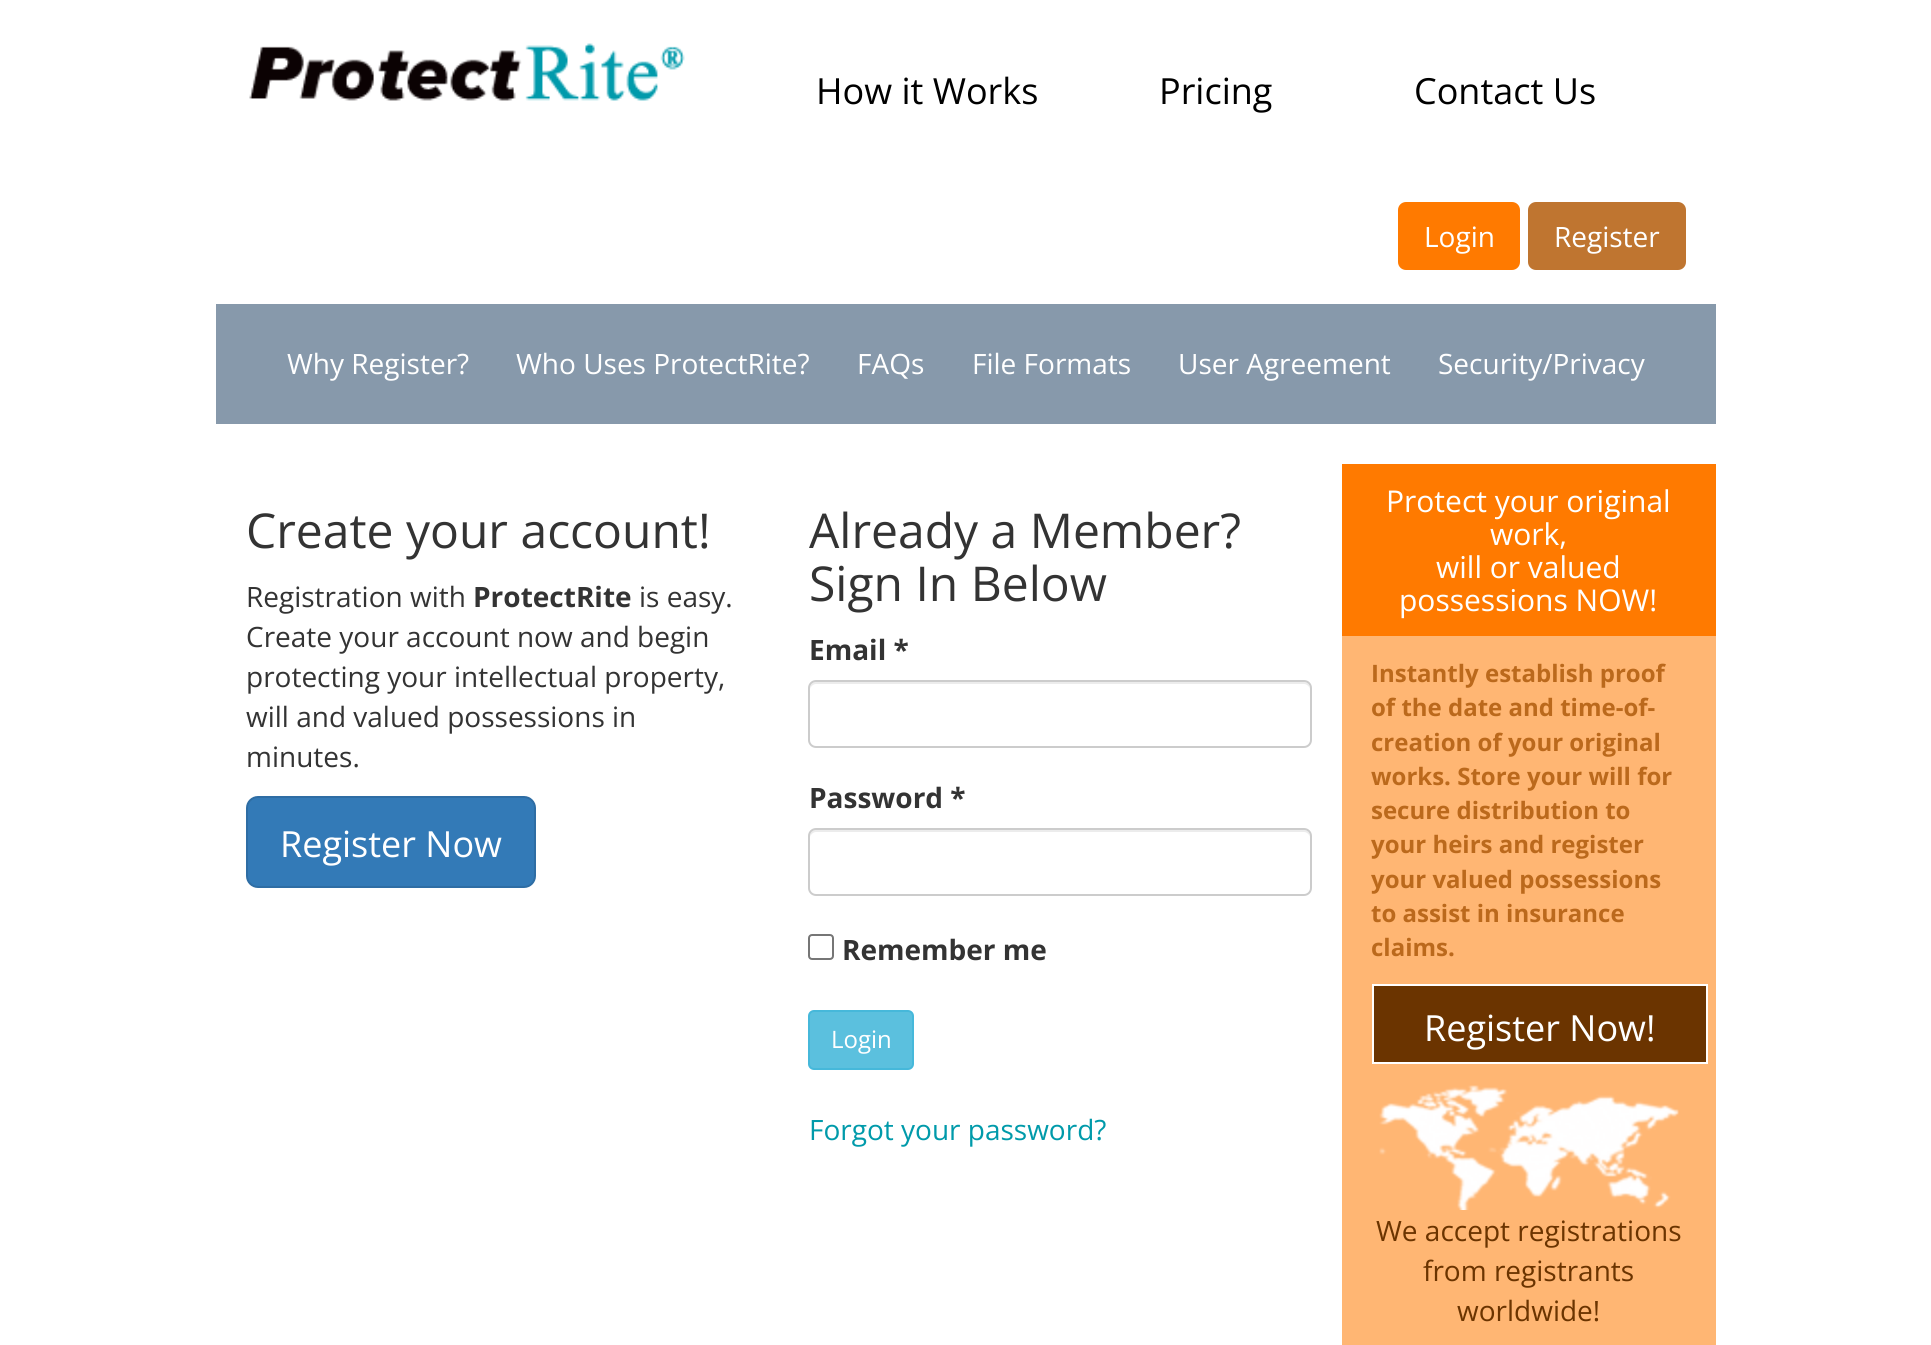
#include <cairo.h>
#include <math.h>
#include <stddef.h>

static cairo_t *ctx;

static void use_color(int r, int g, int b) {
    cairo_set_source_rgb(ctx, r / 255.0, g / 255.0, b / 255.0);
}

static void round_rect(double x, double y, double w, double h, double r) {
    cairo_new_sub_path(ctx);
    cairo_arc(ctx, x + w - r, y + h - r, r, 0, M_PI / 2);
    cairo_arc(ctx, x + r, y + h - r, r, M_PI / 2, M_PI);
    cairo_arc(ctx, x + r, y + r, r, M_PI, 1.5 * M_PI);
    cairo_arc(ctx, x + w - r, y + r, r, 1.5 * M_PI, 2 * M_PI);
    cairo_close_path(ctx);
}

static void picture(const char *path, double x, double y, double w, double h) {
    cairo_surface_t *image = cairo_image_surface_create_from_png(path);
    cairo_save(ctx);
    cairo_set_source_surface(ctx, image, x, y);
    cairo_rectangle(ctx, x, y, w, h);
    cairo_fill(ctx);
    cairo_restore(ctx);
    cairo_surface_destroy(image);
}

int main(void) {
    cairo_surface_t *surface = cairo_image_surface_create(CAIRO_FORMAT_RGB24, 1931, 1345);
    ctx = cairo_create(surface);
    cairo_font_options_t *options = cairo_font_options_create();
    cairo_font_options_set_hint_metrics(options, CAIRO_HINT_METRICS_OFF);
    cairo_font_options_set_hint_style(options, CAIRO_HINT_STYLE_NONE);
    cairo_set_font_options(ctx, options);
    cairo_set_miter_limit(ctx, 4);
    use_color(255, 255, 255);
    cairo_paint(ctx);
    picture("img1.png", 249, 43, 436, 58);
    cairo_select_font_face(ctx, "Open Sans", CAIRO_FONT_SLANT_NORMAL, CAIRO_FONT_WEIGHT_NORMAL);
    cairo_set_font_size(ctx, 36);
    use_color(0, 0, 0);
    cairo_move_to(ctx, 816, 104);
    cairo_show_text(ctx, "How it Works");
    cairo_move_to(ctx, 1159, 104);
    cairo_show_text(ctx, "Pricing");
    cairo_move_to(ctx, 1414, 104);
    cairo_show_text(ctx, "Contact Us");
    use_color(255, 122, 0);
    round_rect(1399, 203, 120, 66, 7);
    cairo_fill_preserve(ctx);
    cairo_stroke(ctx);
    cairo_set_font_size(ctx, 28);
    use_color(255, 255, 255);
    cairo_move_to(ctx, 1424, 247);
    cairo_show_text(ctx, "Login");
    use_color(191, 117, 48);
    round_rect(1529, 203, 156, 66, 7);
    cairo_fill_preserve(ctx);
    cairo_stroke(ctx);
    use_color(255, 255, 255);
    cairo_move_to(ctx, 1554, 247);
    cairo_show_text(ctx, "Register");
    use_color(135, 153, 171);
    cairo_rectangle(ctx, 216, 304, 1500, 120);
    cairo_fill(ctx);
    use_color(255, 255, 255);
    cairo_move_to(ctx, 287, 374);
    cairo_show_text(ctx, "Why Register?");
    cairo_move_to(ctx, 516, 374);
    cairo_show_text(ctx, "Who Uses ProtectRite?");
    cairo_move_to(ctx, 857, 374);
    cairo_show_text(ctx, "FAQs");
    cairo_move_to(ctx, 972, 374);
    cairo_show_text(ctx, "File Formats");
    cairo_move_to(ctx, 1178, 374);
    cairo_show_text(ctx, "User Agreement");
    cairo_move_to(ctx, 1438, 374);
    cairo_show_text(ctx, "Security/Privacy");
    cairo_set_font_size(ctx, 48);
    use_color(51, 51, 51);
    cairo_move_to(ctx, 246, 548);
    cairo_show_text(ctx, "Create your account!");
    cairo_set_font_size(ctx, 28);
    cairo_move_to(ctx, 246, 607);
    cairo_show_text(ctx, "Registration with");
    cairo_select_font_face(ctx, "Open Sans", CAIRO_FONT_SLANT_NORMAL, CAIRO_FONT_WEIGHT_BOLD);
    cairo_move_to(ctx, 473, 607);
    cairo_show_text(ctx, "ProtectRite");
    cairo_select_font_face(ctx, "Open Sans", CAIRO_FONT_SLANT_NORMAL, CAIRO_FONT_WEIGHT_NORMAL);
    cairo_move_to(ctx, 639, 607);
    cairo_show_text(ctx, "is easy.");
    cairo_move_to(ctx, 246, 647);
    cairo_show_text(ctx, "Create your account now and begin");
    cairo_move_to(ctx, 246, 687);
    cairo_show_text(ctx, "protecting your intellectual property,");
    cairo_move_to(ctx, 246, 727);
    cairo_show_text(ctx, "will and valued possessions in");
    cairo_move_to(ctx, 246, 767);
    cairo_show_text(ctx, "minutes.");
    use_color(51, 122, 183);
    round_rect(247, 797, 288, 90, 11);
    cairo_fill_preserve(ctx);
    use_color(46, 109, 164);
    cairo_stroke(ctx);
    cairo_set_font_size(ctx, 36);
    use_color(255, 255, 255);
    cairo_move_to(ctx, 280, 857);
    cairo_show_text(ctx, "Register Now");
    cairo_set_font_size(ctx, 48);
    use_color(51, 51, 51);
    cairo_move_to(ctx, 809, 548);
    cairo_show_text(ctx, "Already a Member?");
    cairo_move_to(ctx, 809, 601);
    cairo_show_text(ctx, "Sign In Below");
    cairo_select_font_face(ctx, "Open Sans", CAIRO_FONT_SLANT_NORMAL, CAIRO_FONT_WEIGHT_BOLD);
    cairo_set_font_size(ctx, 28);
    cairo_move_to(ctx, 809, 660);
    cairo_show_text(ctx, "Email *");
    use_color(236, 236, 236);
    cairo_new_path(ctx);
    cairo_move_to(ctx, 816, 684);
    cairo_line_to(ctx, 1304, 684);
    cairo_curve_to(ctx, 1307, 684, 1310, 687, 1310, 690);
    cairo_curve_to(ctx, 1310, 686, 1309, 682, 1304, 682);
    cairo_line_to(ctx, 816, 682);
    cairo_curve_to(ctx, 811, 682, 810, 686, 810, 690);
    cairo_curve_to(ctx, 810, 687, 813, 684, 816, 684);
    cairo_close_path(ctx);
    cairo_fill(ctx);
    round_rect(809, 681, 502, 66, 7);
    use_color(204, 204, 204);
    cairo_stroke(ctx);
    use_color(51, 51, 51);
    cairo_move_to(ctx, 809, 808);
    cairo_show_text(ctx, "Password *");
    use_color(236, 236, 236);
    cairo_new_path(ctx);
    cairo_move_to(ctx, 816, 832);
    cairo_line_to(ctx, 1304, 832);
    cairo_curve_to(ctx, 1307, 832, 1310, 835, 1310, 838);
    cairo_curve_to(ctx, 1310, 834, 1309, 830, 1304, 830);
    cairo_line_to(ctx, 816, 830);
    cairo_curve_to(ctx, 811, 830, 810, 834, 810, 838);
    cairo_curve_to(ctx, 810, 835, 813, 832, 816, 832);
    cairo_close_path(ctx);
    cairo_fill(ctx);
    round_rect(809, 829, 502, 66, 7);
    use_color(204, 204, 204);
    cairo_stroke(ctx);
    round_rect(809, 935, 24, 24, 3);
    use_color(118, 118, 118);
    cairo_stroke(ctx);
    use_color(51, 51, 51);
    cairo_move_to(ctx, 842, 960);
    cairo_show_text(ctx, "Remember me");
    use_color(91, 192, 222);
    round_rect(809, 1011, 104, 58, 5);
    cairo_fill_preserve(ctx);
    use_color(70, 184, 218);
    cairo_stroke(ctx);
    cairo_select_font_face(ctx, "Open Sans", CAIRO_FONT_SLANT_NORMAL, CAIRO_FONT_WEIGHT_NORMAL);
    cairo_set_font_size(ctx, 24);
    use_color(255, 255, 255);
    cairo_move_to(ctx, 831, 1048);
    cairo_show_text(ctx, "Login");
    cairo_set_font_size(ctx, 28);
    use_color(0, 154, 170);
    cairo_move_to(ctx, 809, 1140);
    cairo_show_text(ctx, "Forgot your password?");
    use_color(255, 182, 115);
    cairo_rectangle(ctx, 1342, 636, 374, 709);
    cairo_fill(ctx);
    use_color(255, 122, 0);
    cairo_rectangle(ctx, 1342, 464, 374, 172);
    cairo_fill(ctx);
    cairo_set_font_size(ctx, 30);
    use_color(255, 255, 255);
    cairo_move_to(ctx, 1386, 512);
    cairo_show_text(ctx, "Protect your original");
    cairo_move_to(ctx, 1490, 545);
    cairo_show_text(ctx, "work,");
    cairo_move_to(ctx, 1436, 578);
    cairo_show_text(ctx, "will or valued");
    cairo_move_to(ctx, 1399, 611);
    cairo_show_text(ctx, "possessions NOW!");
    cairo_select_font_face(ctx, "Open Sans", CAIRO_FONT_SLANT_NORMAL, CAIRO_FONT_WEIGHT_BOLD);
    cairo_set_font_size(ctx, 24);
    use_color(187, 105, 28);
    cairo_move_to(ctx, 1371, 682);
    cairo_show_text(ctx, "Instantly establish proof");
    cairo_move_to(ctx, 1371, 716);
    cairo_show_text(ctx, "of the date and time-of-");
    cairo_move_to(ctx, 1371, 751);
    cairo_show_text(ctx, "creation of your original");
    cairo_move_to(ctx, 1371, 785);
    cairo_show_text(ctx, "works. Store your will for");
    cairo_move_to(ctx, 1371, 819);
    cairo_show_text(ctx, "secure distribution to");
    cairo_move_to(ctx, 1371, 853);
    cairo_show_text(ctx, "your heirs and register");
    cairo_move_to(ctx, 1371, 888);
    cairo_show_text(ctx, "your valued possessions");
    cairo_move_to(ctx, 1371, 922);
    cairo_show_text(ctx, "to assist in insurance");
    cairo_move_to(ctx, 1371, 956);
    cairo_show_text(ctx, "claims.");
    use_color(107, 52, 0);
    cairo_rectangle(ctx, 1373, 985, 334, 78);
    cairo_fill_preserve(ctx);
    use_color(255, 255, 255);
    cairo_stroke(ctx);
    cairo_select_font_face(ctx, "Open Sans", CAIRO_FONT_SLANT_NORMAL, CAIRO_FONT_WEIGHT_NORMAL);
    cairo_set_font_size(ctx, 36);
    cairo_move_to(ctx, 1424, 1041);
    cairo_show_text(ctx, "Register Now!");
    picture("img2.png", 1379, 1085, 300, 125);
    cairo_set_font_size(ctx, 28);
    use_color(107, 52, 0);
    cairo_move_to(ctx, 1376, 1241);
    cairo_show_text(ctx, "We accept registrations");
    cairo_move_to(ctx, 1423, 1281);
    cairo_show_text(ctx, "from registrants");
    cairo_move_to(ctx, 1457, 1321);
    cairo_show_text(ctx, "worldwide!");
    cairo_surface_write_to_png(surface, "result.png");
    cairo_font_options_destroy(options);
    cairo_destroy(ctx);
    cairo_surface_destroy(surface);
    return 0;
}
